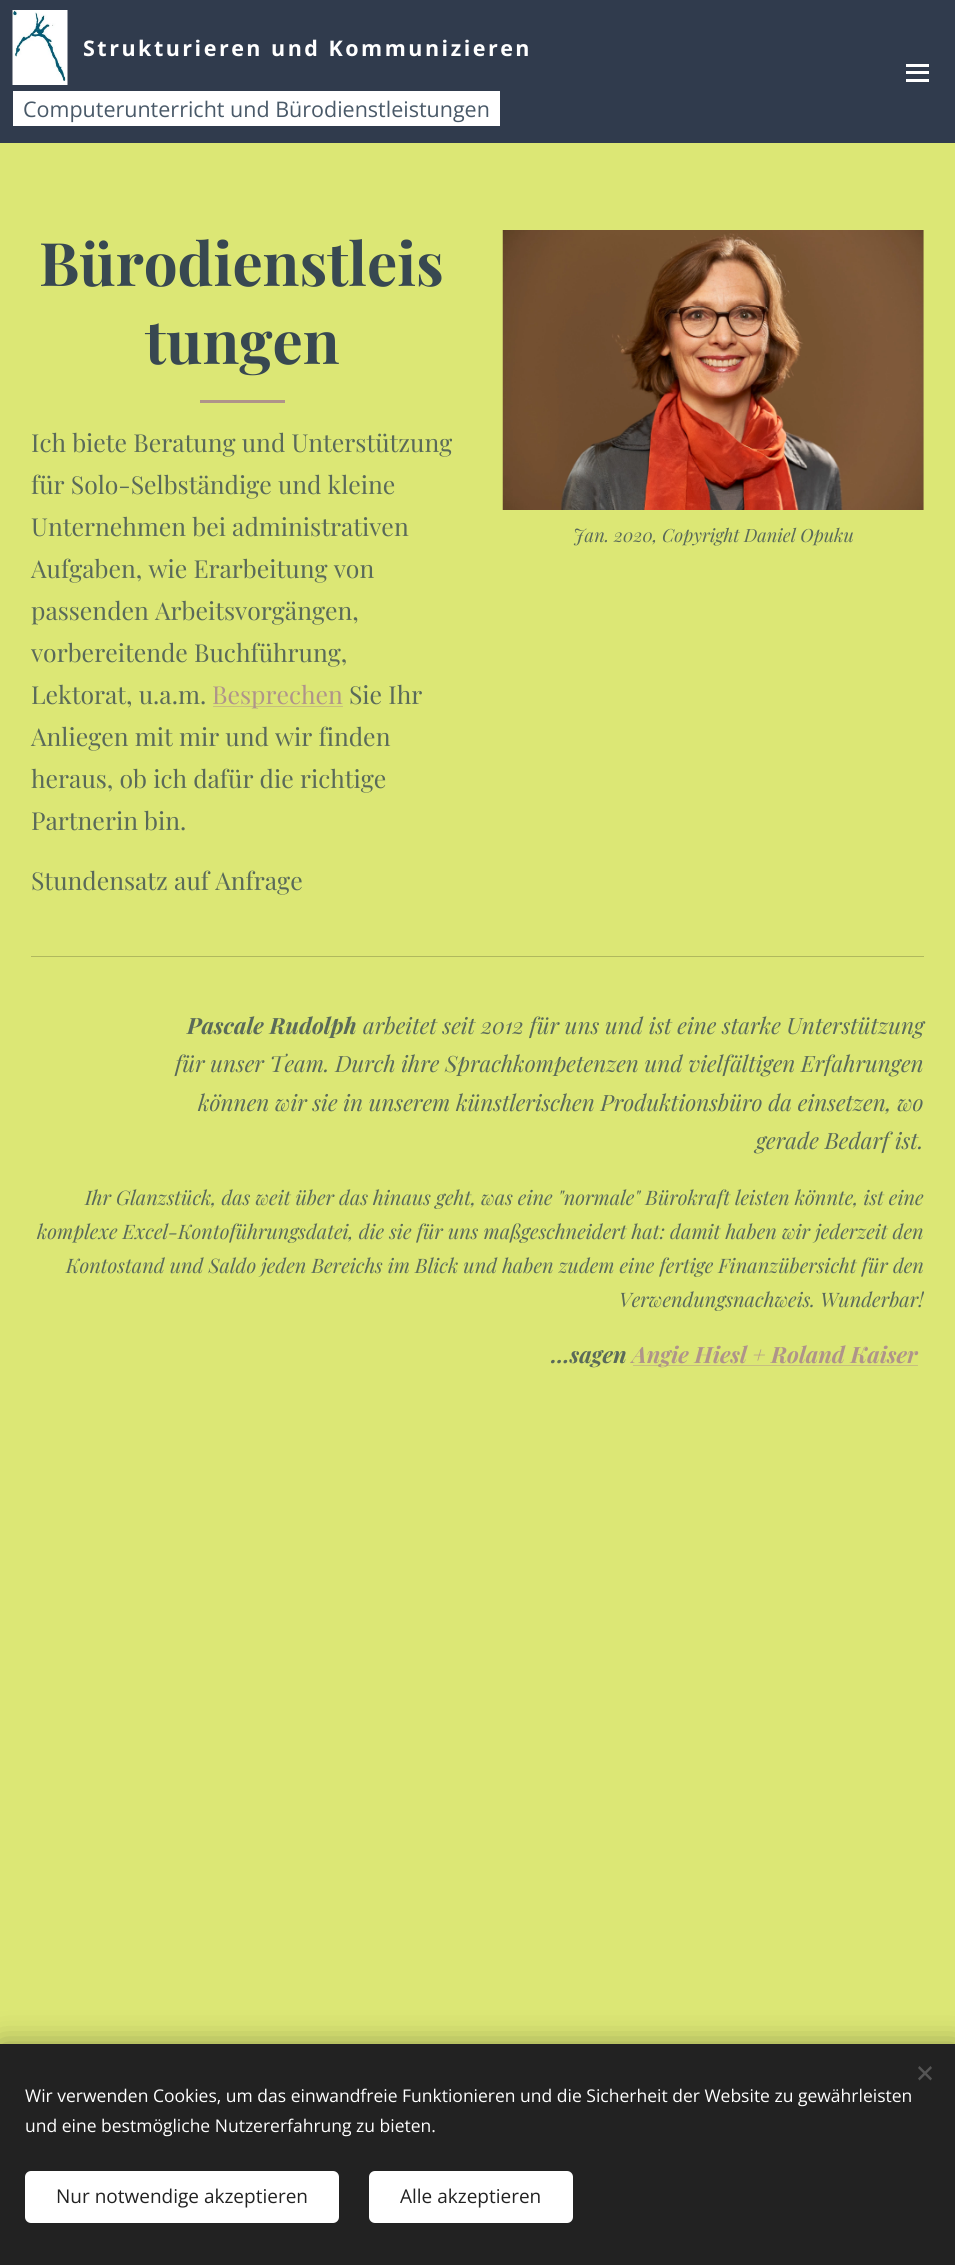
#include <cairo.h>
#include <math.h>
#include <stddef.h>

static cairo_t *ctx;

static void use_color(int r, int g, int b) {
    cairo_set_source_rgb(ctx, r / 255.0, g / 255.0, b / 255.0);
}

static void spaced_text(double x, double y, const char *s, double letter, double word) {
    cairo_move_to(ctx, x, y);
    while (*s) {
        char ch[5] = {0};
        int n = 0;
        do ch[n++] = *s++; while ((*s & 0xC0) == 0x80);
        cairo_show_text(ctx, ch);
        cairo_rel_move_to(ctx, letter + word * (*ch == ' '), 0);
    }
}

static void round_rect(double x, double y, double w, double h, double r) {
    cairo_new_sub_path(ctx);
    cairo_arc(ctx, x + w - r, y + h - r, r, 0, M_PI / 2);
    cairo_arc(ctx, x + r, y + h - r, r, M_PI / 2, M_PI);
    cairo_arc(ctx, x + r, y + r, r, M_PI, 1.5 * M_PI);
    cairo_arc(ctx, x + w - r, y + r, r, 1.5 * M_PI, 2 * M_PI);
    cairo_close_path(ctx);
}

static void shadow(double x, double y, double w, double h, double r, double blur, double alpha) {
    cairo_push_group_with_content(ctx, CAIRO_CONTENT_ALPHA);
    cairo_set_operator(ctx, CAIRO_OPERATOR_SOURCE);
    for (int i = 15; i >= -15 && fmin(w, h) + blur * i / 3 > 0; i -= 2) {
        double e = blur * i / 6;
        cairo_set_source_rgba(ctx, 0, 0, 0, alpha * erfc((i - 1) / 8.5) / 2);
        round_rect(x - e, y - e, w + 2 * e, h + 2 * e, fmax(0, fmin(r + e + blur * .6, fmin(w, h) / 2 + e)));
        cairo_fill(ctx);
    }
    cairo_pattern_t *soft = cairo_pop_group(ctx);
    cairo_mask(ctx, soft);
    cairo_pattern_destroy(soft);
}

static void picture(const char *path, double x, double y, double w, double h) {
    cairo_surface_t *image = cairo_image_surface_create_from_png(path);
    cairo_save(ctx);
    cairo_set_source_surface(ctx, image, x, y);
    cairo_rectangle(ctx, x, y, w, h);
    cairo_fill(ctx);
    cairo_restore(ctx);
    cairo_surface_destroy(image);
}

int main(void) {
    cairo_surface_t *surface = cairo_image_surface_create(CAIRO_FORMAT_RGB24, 955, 2265);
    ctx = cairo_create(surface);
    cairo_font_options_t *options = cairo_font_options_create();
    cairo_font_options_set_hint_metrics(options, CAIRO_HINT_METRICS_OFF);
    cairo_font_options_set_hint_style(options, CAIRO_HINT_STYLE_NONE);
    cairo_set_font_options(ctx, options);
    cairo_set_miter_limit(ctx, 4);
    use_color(220, 231, 117);
    cairo_paint(ctx);
    use_color(48, 59, 77);
    cairo_rectangle(ctx, 0, 0, 955, 143);
    cairo_fill(ctx);
    picture("img1.png", 12, 10, 56, 75);
    cairo_select_font_face(ctx, "Open Sans", CAIRO_FONT_SLANT_NORMAL, CAIRO_FONT_WEIGHT_BOLD);
    cairo_set_font_size(ctx, 21.5);
    use_color(255, 255, 255);
    spaced_text(83, 56, "Strukturieren und Kommunizieren", 2.5, 0);
    cairo_save(ctx);
    cairo_rectangle(ctx, 13, 91, 487, 35);
    cairo_clip(ctx);
    cairo_new_path(ctx);
    cairo_move_to(ctx, 0, 91);
    cairo_line_to(ctx, 0, 126);
    cairo_line_to(ctx, 19, 126);
    cairo_line_to(ctx, 19, 91);
    cairo_line_to(ctx, 475, 91);
    cairo_close_path(ctx);
    cairo_fill(ctx);
    cairo_new_path(ctx);
    cairo_move_to(ctx, 38, 91);
    cairo_line_to(ctx, 494, 91);
    cairo_line_to(ctx, 494, 126);
    cairo_line_to(ctx, 513, 126);
    cairo_line_to(ctx, 513, 91);
    cairo_close_path(ctx);
    cairo_fill(ctx);
    cairo_restore(ctx);
    cairo_rectangle(ctx, 19, 91, 475, 35);
    cairo_fill(ctx);
    cairo_select_font_face(ctx, "Open Sans", CAIRO_FONT_SLANT_NORMAL, CAIRO_FONT_WEIGHT_NORMAL);
    use_color(73, 89, 104);
    cairo_move_to(ctx, 23, 117);
    cairo_show_text(ctx, "Computerunterricht und Bürodienstleistungen");
    use_color(255, 255, 255);
    cairo_rectangle(ctx, 906, 71, 23, 3);
    cairo_fill(ctx);
    cairo_rectangle(ctx, 906, 64, 23, 3);
    cairo_fill(ctx);
    cairo_rectangle(ctx, 906, 79, 23, 3);
    cairo_fill(ctx);
    cairo_select_font_face(ctx, "Playfair Display", CAIRO_FONT_SLANT_NORMAL, CAIRO_FONT_WEIGHT_BOLD);
    cairo_set_font_size(ctx, 60);
    use_color(56, 72, 81);
    cairo_move_to(ctx, 39, 286);
    cairo_show_text(ctx, "Bürodienstleis");
    cairo_move_to(ctx, 145, 364);
    cairo_show_text(ctx, "tungen");
    use_color(175, 148, 138);
    cairo_rectangle(ctx, 200, 400, 85, 3);
    cairo_fill(ctx);
    cairo_select_font_face(ctx, "Playfair Display", CAIRO_FONT_SLANT_NORMAL, CAIRO_FONT_WEIGHT_NORMAL);
    cairo_set_font_size(ctx, 24.75);
    use_color(90, 106, 89);
    cairo_move_to(ctx, 31, 452);
    cairo_show_text(ctx, "Ich biete Beratung und Unterstützung");
    cairo_move_to(ctx, 31, 494);
    cairo_show_text(ctx, "für Solo-Selbständige und kleine");
    cairo_move_to(ctx, 31, 536);
    cairo_show_text(ctx, "Unternehmen bei administrativen");
    cairo_move_to(ctx, 31, 578);
    cairo_show_text(ctx, "Aufgaben, wie Erarbeitung von");
    cairo_move_to(ctx, 31, 620);
    cairo_show_text(ctx, "passenden Arbeitsvorgängen,");
    cairo_move_to(ctx, 31, 662);
    cairo_show_text(ctx, "vorbereitende Buchführung,");
    cairo_move_to(ctx, 31, 704);
    cairo_show_text(ctx, "Lektorat, u.a.m.");
    use_color(198, 190, 128);
    cairo_rectangle(ctx, 213, 706, 130, 1);
    cairo_fill(ctx);
    use_color(175, 148, 138);
    cairo_move_to(ctx, 212, 704);
    cairo_show_text(ctx, "Besprechen");
    use_color(90, 106, 89);
    cairo_move_to(ctx, 349, 704);
    cairo_show_text(ctx, "Sie Ihr");
    cairo_move_to(ctx, 31, 746);
    cairo_show_text(ctx, "Anliegen mit mir und wir finden");
    cairo_move_to(ctx, 31, 788);
    cairo_show_text(ctx, "heraus, ob ich dafür die richtige");
    cairo_move_to(ctx, 31, 830);
    cairo_show_text(ctx, "Partnerin bin.");
    cairo_move_to(ctx, 31, 890);
    cairo_show_text(ctx, "Stundensatz auf Anfrage");
    picture("img2.png", 502, 230, 422, 280);
    cairo_select_font_face(ctx, "Playfair Display", CAIRO_FONT_SLANT_ITALIC, CAIRO_FONT_WEIGHT_NORMAL);
    cairo_set_font_size(ctx, 18.25);
    cairo_move_to(ctx, 573, 542);
    cairo_show_text(ctx, "Jan. 2020, Copyright Daniel Opuku");
    use_color(176, 185, 94);
    cairo_rectangle(ctx, 31, 956, 893, 1);
    cairo_fill(ctx);
    cairo_select_font_face(ctx, "Playfair Display", CAIRO_FONT_SLANT_ITALIC, CAIRO_FONT_WEIGHT_BOLD);
    cairo_set_font_size(ctx, 22.5);
    use_color(90, 106, 89);
    cairo_move_to(ctx, 187, 1034);
    cairo_show_text(ctx, "Pascale Rudolph");
    cairo_select_font_face(ctx, "Playfair Display", CAIRO_FONT_SLANT_ITALIC, CAIRO_FONT_WEIGHT_NORMAL);
    cairo_move_to(ctx, 363, 1034);
    cairo_show_text(ctx, "arbeitet seit 2012 für uns und ist eine starke Unterstützung");
    cairo_move_to(ctx, 175, 1072);
    cairo_show_text(ctx, "für unser Team. Durch ihre Sprachkompetenzen und vielfältigen Erfahrungen");
    cairo_move_to(ctx, 198, 1111);
    cairo_show_text(ctx, "können wir sie in unserem künstlerischen Produktionsbüro da einsetzen, wo");
    cairo_move_to(ctx, 756, 1149);
    cairo_show_text(ctx, "gerade Bedarf ist.");
    cairo_set_font_size(ctx, 20);
    cairo_move_to(ctx, 85, 1205);
    cairo_show_text(ctx, "Ihr Glanzstück, das weit über das hinaus geht, was eine \"normale\" Bürokraft leisten könnte, ist eine");
    cairo_move_to(ctx, 37, 1239);
    cairo_show_text(ctx, "komplexe Excel-Kontoführungsdatei, die sie für uns maßgeschneidert hat: damit haben wir jederzeit den");
    cairo_move_to(ctx, 66, 1273);
    cairo_show_text(ctx, "Kontostand und Saldo jeden Bereichs im Blick und haben zudem eine fertige Finanzübersicht für den");
    cairo_move_to(ctx, 619, 1307);
    cairo_show_text(ctx, "Verwendungsnachweis. Wunderbar!");
    cairo_select_font_face(ctx, "Playfair Display", CAIRO_FONT_SLANT_ITALIC, CAIRO_FONT_WEIGHT_BOLD);
    cairo_set_font_size(ctx, 22.5);
    cairo_move_to(ctx, 551, 1363);
    cairo_show_text(ctx, "...sagen");
    use_color(198, 190, 128);
    cairo_rectangle(ctx, 633, 1365, 285, 1);
    cairo_fill(ctx);
    use_color(175, 148, 138);
    cairo_move_to(ctx, 632, 1363);
    cairo_show_text(ctx, "Angie Hiesl + Roland Kaiser");
    use_color(0, 0, 0);
    shadow(0, 2044, 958, 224, 0, 15.5, 0.33);
    use_color(34, 34, 34);
    cairo_rectangle(ctx, 0, 2044, 955, 221);
    cairo_fill(ctx);
    use_color(85, 85, 85);
    cairo_new_path(ctx);
    cairo_move_to(ctx, 918, 2078.5);
    cairo_line_to(ctx, 930.5, 2066);
    cairo_line_to(ctx, 932, 2068);
    cairo_line_to(ctx, 919.5, 2080.5);
    cairo_close_path(ctx);
    cairo_fill(ctx);
    cairo_new_path(ctx);
    cairo_move_to(ctx, 919.5, 2066);
    cairo_line_to(ctx, 932, 2078.5);
    cairo_line_to(ctx, 930.5, 2080.5);
    cairo_line_to(ctx, 918, 2068);
    cairo_close_path(ctx);
    cairo_fill(ctx);
    cairo_select_font_face(ctx, "Open Sans", CAIRO_FONT_SLANT_NORMAL, CAIRO_FONT_WEIGHT_NORMAL);
    cairo_set_font_size(ctx, 17.5);
    use_color(255, 255, 255);
    cairo_move_to(ctx, 25, 2102);
    cairo_show_text(ctx, "Wir verwenden Cookies, um das einwandfreie Funktionieren und die Sicherheit der Website zu gewährleisten");
    cairo_move_to(ctx, 25, 2132);
    cairo_show_text(ctx, "und eine bestmögliche Nutzererfahrung zu bieten.");
    round_rect(25, 2171, 314, 52, 6);
    cairo_fill(ctx);
    cairo_set_font_size(ctx, 19);
    use_color(34, 34, 34);
    cairo_move_to(ctx, 56, 2203);
    cairo_show_text(ctx, "Nur notwendige akzeptieren");
    use_color(255, 255, 255);
    round_rect(369, 2171, 204, 52, 6);
    cairo_fill(ctx);
    use_color(34, 34, 34);
    cairo_move_to(ctx, 400, 2203);
    cairo_show_text(ctx, "Alle akzeptieren");
    cairo_surface_write_to_png(surface, "result.png");
    cairo_font_options_destroy(options);
    cairo_destroy(ctx);
    cairo_surface_destroy(surface);
    return 0;
}
